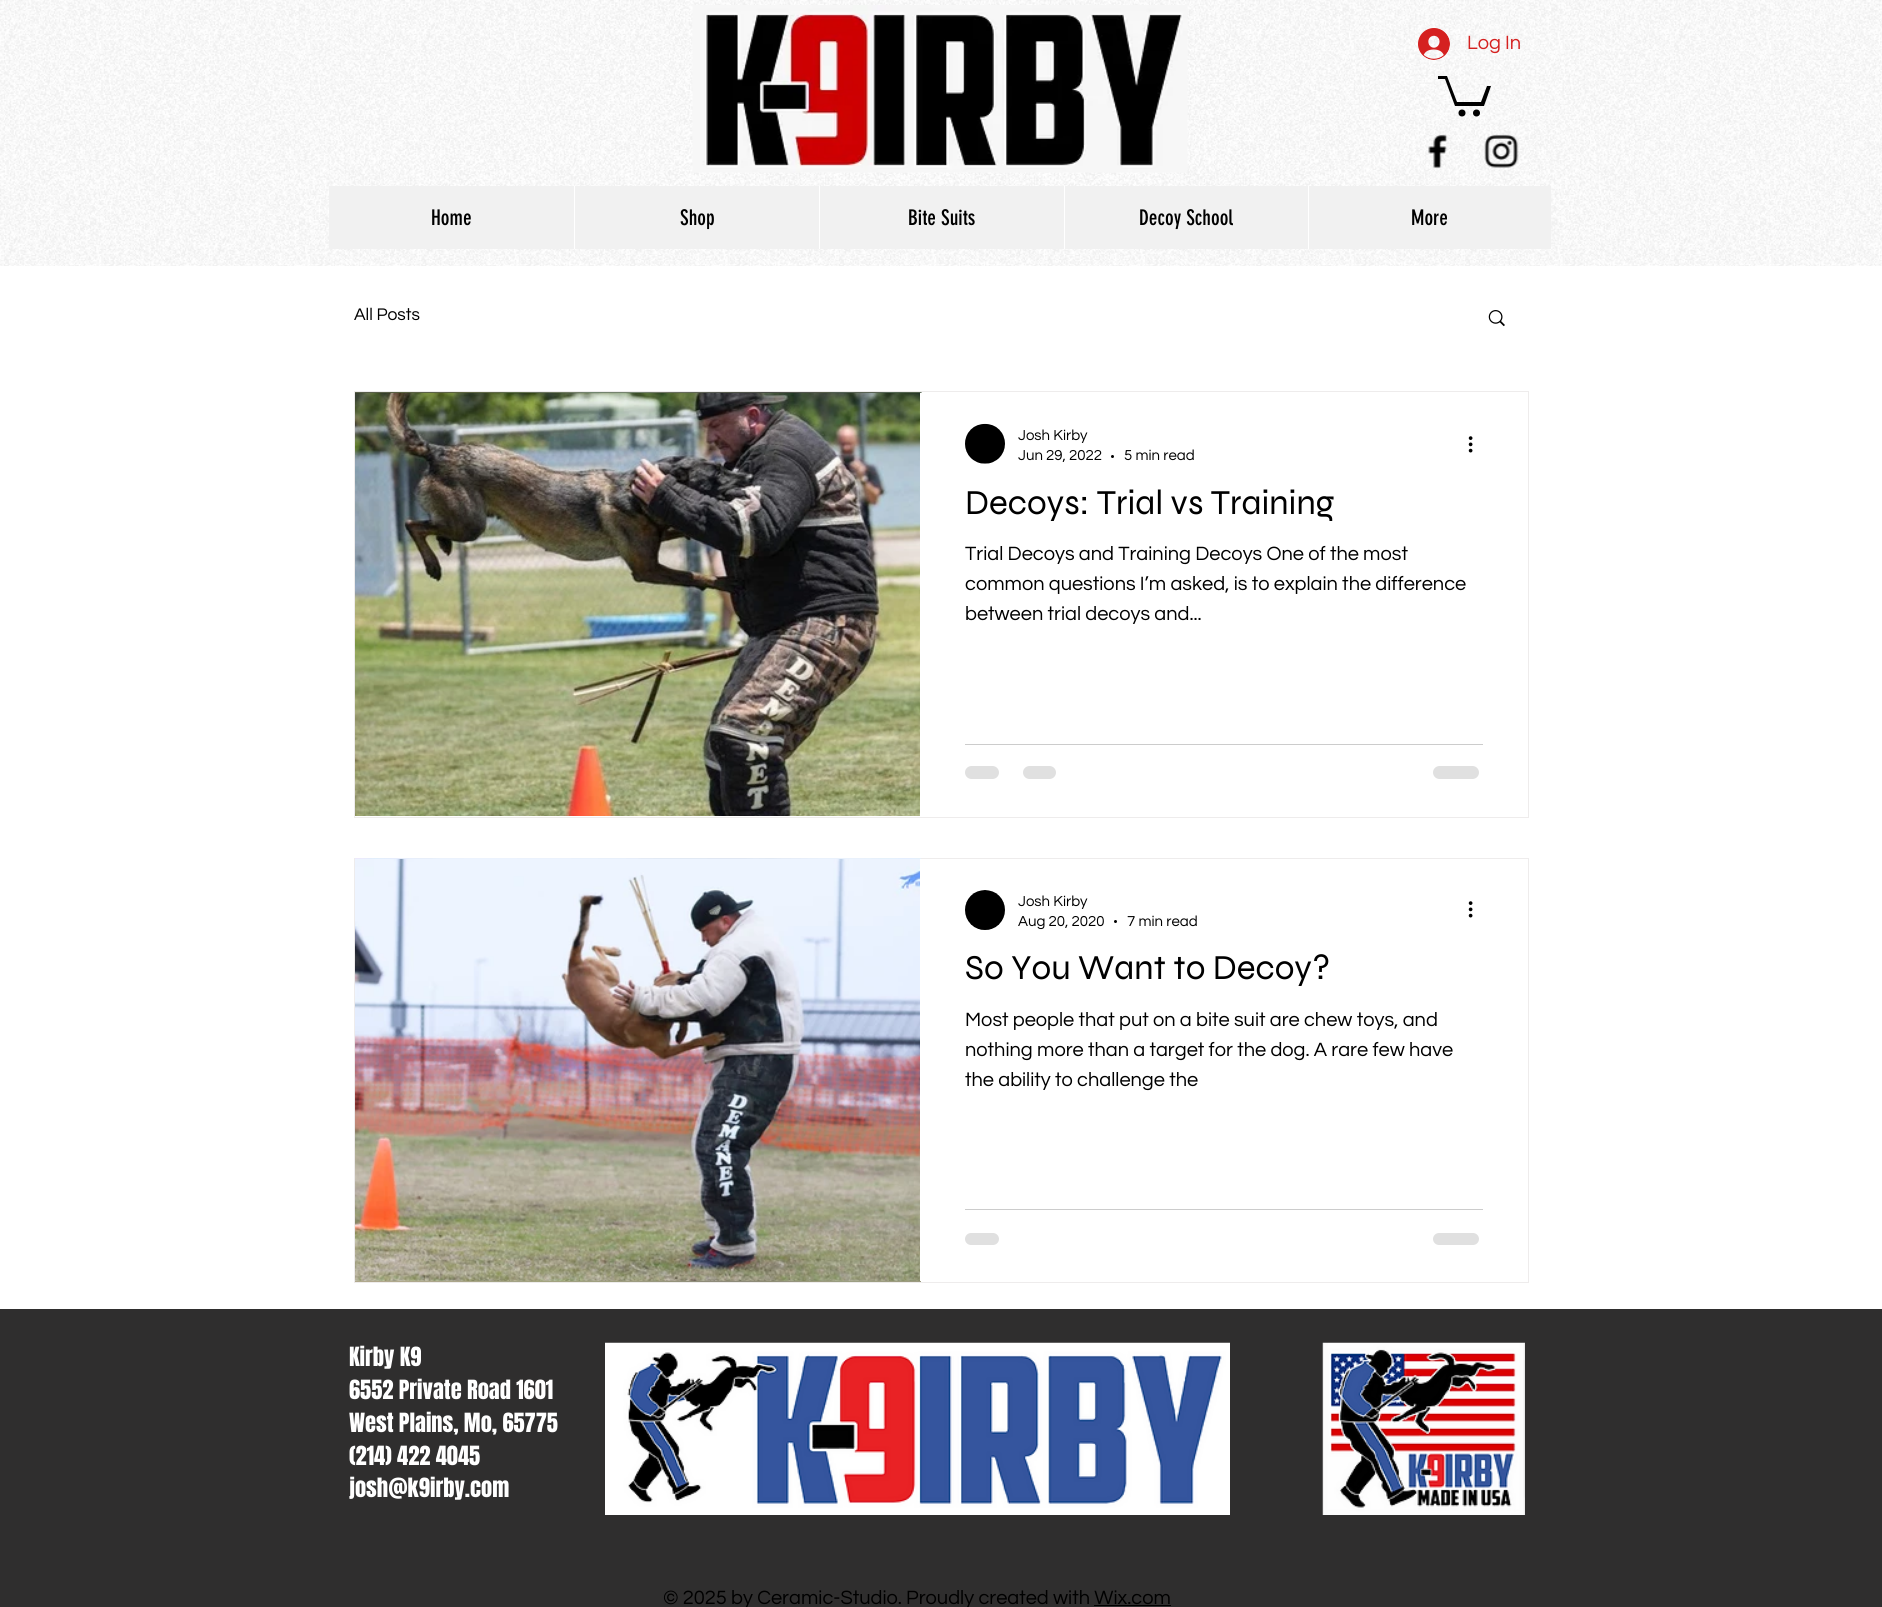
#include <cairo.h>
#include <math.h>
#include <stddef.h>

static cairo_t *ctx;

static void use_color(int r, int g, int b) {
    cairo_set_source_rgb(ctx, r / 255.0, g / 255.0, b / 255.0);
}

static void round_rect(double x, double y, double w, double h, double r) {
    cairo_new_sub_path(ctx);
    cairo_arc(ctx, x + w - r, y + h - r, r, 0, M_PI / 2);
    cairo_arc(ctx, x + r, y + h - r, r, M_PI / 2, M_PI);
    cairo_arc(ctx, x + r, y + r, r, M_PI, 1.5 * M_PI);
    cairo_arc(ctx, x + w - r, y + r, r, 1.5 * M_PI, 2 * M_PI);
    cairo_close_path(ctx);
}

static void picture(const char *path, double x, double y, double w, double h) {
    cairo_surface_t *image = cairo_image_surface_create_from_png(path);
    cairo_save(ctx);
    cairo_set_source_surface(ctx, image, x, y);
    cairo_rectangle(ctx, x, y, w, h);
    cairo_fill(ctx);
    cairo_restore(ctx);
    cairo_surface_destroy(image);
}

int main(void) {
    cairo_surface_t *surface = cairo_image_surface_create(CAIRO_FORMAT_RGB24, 1882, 1607);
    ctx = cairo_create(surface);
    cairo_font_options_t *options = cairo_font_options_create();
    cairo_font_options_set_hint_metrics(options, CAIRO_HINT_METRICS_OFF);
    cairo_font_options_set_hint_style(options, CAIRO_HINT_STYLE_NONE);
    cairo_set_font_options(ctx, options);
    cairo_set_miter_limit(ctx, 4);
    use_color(255, 255, 255);
    cairo_paint(ctx);
    picture("img1.png", 0, 0, 1882, 266);
    picture("img2.png", 692, 5, 496, 168);
    picture("img3.png", 1418, 28, 32, 32);
    cairo_select_font_face(ctx, "Questrial", CAIRO_FONT_SLANT_NORMAL, CAIRO_FONT_WEIGHT_NORMAL);
    cairo_set_font_size(ctx, 20);
    use_color(213, 33, 32);
    cairo_move_to(ctx, 1467, 49);
    cairo_show_text(ctx, "Log In");
    use_color(0, 0, 0);
    cairo_new_path(ctx);
    cairo_move_to(ctx, 1491, 86);
    cairo_line_to(ctx, 1484, 106);
    cairo_line_to(ctx, 1455, 106);
    cairo_line_to(ctx, 1445, 79);
    cairo_line_to(ctx, 1438, 79);
    cairo_line_to(ctx, 1438, 76);
    cairo_line_to(ctx, 1447, 76);
    cairo_line_to(ctx, 1457, 102);
    cairo_line_to(ctx, 1481, 102);
    cairo_line_to(ctx, 1487, 86);
    cairo_fill(ctx);
    cairo_arc(ctx, 1476.5, 113, 3.5, 0, 2 * M_PI);
    cairo_fill(ctx);
    cairo_arc(ctx, 1462, 113, 3.5, 0, 2 * M_PI);
    cairo_fill(ctx);
    picture("img4.png", 1428, 134, 20, 34);
    picture("img5.png", 1484, 134, 35, 34);
    use_color(241, 241, 241);
    cairo_rectangle(ctx, 329, 186, 1222, 63);
    cairo_fill(ctx);
    cairo_select_font_face(ctx, "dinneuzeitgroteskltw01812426", CAIRO_FONT_SLANT_NORMAL, CAIRO_FONT_WEIGHT_NORMAL);
    cairo_set_font_size(ctx, 21.25);
    use_color(0, 0, 0);
    cairo_move_to(ctx, 431, 225);
    cairo_show_text(ctx, "Home");
    use_color(255, 255, 255);
    cairo_rectangle(ctx, 574, 186, 1, 63);
    cairo_fill(ctx);
    use_color(0, 0, 0);
    cairo_move_to(ctx, 680, 225);
    cairo_show_text(ctx, "Shop");
    use_color(255, 255, 255);
    cairo_rectangle(ctx, 819, 186, 1, 63);
    cairo_fill(ctx);
    use_color(0, 0, 0);
    cairo_move_to(ctx, 908, 225);
    cairo_show_text(ctx, "Bite Suits");
    use_color(255, 255, 255);
    cairo_rectangle(ctx, 1064, 186, 1, 63);
    cairo_fill(ctx);
    use_color(0, 0, 0);
    cairo_move_to(ctx, 1139, 225);
    cairo_show_text(ctx, "Decoy School");
    use_color(255, 255, 255);
    cairo_rectangle(ctx, 1308, 186, 1, 63);
    cairo_fill(ctx);
    use_color(0, 0, 0);
    cairo_move_to(ctx, 1411, 225);
    cairo_show_text(ctx, "More");
    cairo_select_font_face(ctx, "Questrial", CAIRO_FONT_SLANT_NORMAL, CAIRO_FONT_WEIGHT_NORMAL);
    cairo_set_font_size(ctx, 17.5);
    cairo_move_to(ctx, 354, 320);
    cairo_show_text(ctx, "All Posts");
    picture("img6.png", 1488, 310, 17, 17);
    cairo_rectangle(ctx, 354.5, 391.5, 1174, 426);
    use_color(238, 236, 236);
    cairo_set_line_width(ctx, 1);
    cairo_stroke(ctx);
    picture("img7.png", 355, 392, 567, 1);
    picture("img8.png", 355, 393, 565, 423);
    picture("img9.png", 965, 423, 40, 41);
    cairo_set_font_size(ctx, 15);
    use_color(0, 0, 0);
    cairo_move_to(ctx, 1018, 440);
    cairo_show_text(ctx, "Josh Kirby");
    cairo_move_to(ctx, 1018, 460);
    cairo_show_text(ctx, "Jun 29, 2022");
    cairo_new_path(ctx);
    cairo_arc(ctx, 1112.5, 456.5, 1.5, 0, 2 * M_PI);
    cairo_fill(ctx);
    cairo_move_to(ctx, 1124, 460);
    cairo_show_text(ctx, "5 min read");
    picture("img10.png", 1468, 436, 5, 17);
    cairo_select_font_face(ctx, "Syne", CAIRO_FONT_SLANT_NORMAL, CAIRO_FONT_WEIGHT_NORMAL);
    cairo_set_font_size(ctx, 35);
    cairo_move_to(ctx, 965, 514);
    cairo_show_text(ctx, "Decoys: Trial vs Training");
    cairo_select_font_face(ctx, "Questrial", CAIRO_FONT_SLANT_NORMAL, CAIRO_FONT_WEIGHT_NORMAL);
    cairo_set_font_size(ctx, 20);
    cairo_move_to(ctx, 965, 560);
    cairo_show_text(ctx, "Trial Decoys and Training Decoys One of the most");
    cairo_move_to(ctx, 965, 590);
    cairo_show_text(ctx, "common questions I’m asked, is to explain the difference");
    cairo_move_to(ctx, 965, 620);
    cairo_show_text(ctx, "between trial decoys and...");
    use_color(204, 204, 204);
    cairo_rectangle(ctx, 965, 744, 518, 1);
    cairo_fill(ctx);
    use_color(224, 224, 224);
    round_rect(965, 766, 34, 13, 6.5);
    cairo_fill(ctx);
    round_rect(1023, 766, 33, 13, 6.5);
    cairo_fill(ctx);
    round_rect(1433, 766, 46, 13, 6.5);
    cairo_fill(ctx);
    cairo_rectangle(ctx, 354.5, 858.5, 1174, 424);
    use_color(238, 236, 236);
    cairo_stroke(ctx);
    picture("img11.png", 355, 858, 566, 424);
    picture("img12.png", 355, 859, 565, 422);
    use_color(255, 255, 255);
    cairo_rectangle(ctx, 920, 859, 1, 422);
    cairo_fill(ctx);
    picture("img13.png", 965, 890, 40, 40);
    cairo_set_font_size(ctx, 15);
    use_color(0, 0, 0);
    cairo_move_to(ctx, 1018, 906);
    cairo_show_text(ctx, "Josh Kirby");
    cairo_move_to(ctx, 1018, 926);
    cairo_show_text(ctx, "Aug 20, 2020");
    cairo_new_path(ctx);
    cairo_arc(ctx, 1115.5, 921.5, 1.5, 0, 2 * M_PI);
    cairo_fill(ctx);
    cairo_move_to(ctx, 1127, 926);
    cairo_show_text(ctx, "7 min read");
    picture("img10.png", 1468, 901, 5, 17);
    cairo_select_font_face(ctx, "Syne", CAIRO_FONT_SLANT_NORMAL, CAIRO_FONT_WEIGHT_NORMAL);
    cairo_set_font_size(ctx, 35);
    cairo_move_to(ctx, 965, 979);
    cairo_show_text(ctx, "So You Want to Decoy?");
    cairo_select_font_face(ctx, "Questrial", CAIRO_FONT_SLANT_NORMAL, CAIRO_FONT_WEIGHT_NORMAL);
    cairo_set_font_size(ctx, 20);
    cairo_move_to(ctx, 965, 1026);
    cairo_show_text(ctx, "Most people that put on a bite suit are chew toys, and");
    cairo_move_to(ctx, 965, 1056);
    cairo_show_text(ctx, "nothing more than a target for the dog. A rare few have");
    cairo_move_to(ctx, 965, 1086);
    cairo_show_text(ctx, "the ability to challenge the");
    use_color(204, 204, 204);
    cairo_rectangle(ctx, 965, 1209, 518, 1);
    cairo_fill(ctx);
    use_color(224, 224, 224);
    round_rect(965, 1233, 34, 12, 6);
    cairo_fill(ctx);
    round_rect(1433, 1233, 46, 12, 6);
    cairo_fill(ctx);
    use_color(47, 46, 46);
    cairo_rectangle(ctx, 0, 1309, 1882, 298);
    cairo_fill(ctx);
    cairo_select_font_face(ctx, "Anton", CAIRO_FONT_SLANT_NORMAL, CAIRO_FONT_WEIGHT_NORMAL);
    cairo_set_font_size(ctx, 22.5);
    use_color(255, 255, 255);
    cairo_move_to(ctx, 349, 1366);
    cairo_show_text(ctx, "Kirby K9");
    cairo_move_to(ctx, 349, 1399);
    cairo_show_text(ctx, "6552 Private Road 1601");
    cairo_move_to(ctx, 349, 1432);
    cairo_show_text(ctx, "West Plains, Mo, 65775");
    cairo_move_to(ctx, 349, 1465);
    cairo_show_text(ctx, "(214) 422 4045");
    cairo_move_to(ctx, 349, 1497);
    cairo_show_text(ctx, "josh@k9irby.com");
    picture("img14.png", 605, 1342, 625, 173);
    picture("img15.png", 1322, 1342, 203, 173);
    cairo_select_font_face(ctx, "Questrial", CAIRO_FONT_SLANT_NORMAL, CAIRO_FONT_WEIGHT_NORMAL);
    cairo_set_font_size(ctx, 20);
    use_color(0, 0, 0);
    cairo_move_to(ctx, 663, 1604);
    cairo_show_text(ctx, "© 2025 by Ceramic-Studio. Proudly created with Wix.com");
    cairo_rectangle(ctx, 1094, 1605, 77, 1);
    cairo_fill(ctx);
    cairo_surface_write_to_png(surface, "result.png");
    cairo_font_options_destroy(options);
    cairo_destroy(ctx);
    cairo_surface_destroy(surface);
    return 0;
}
